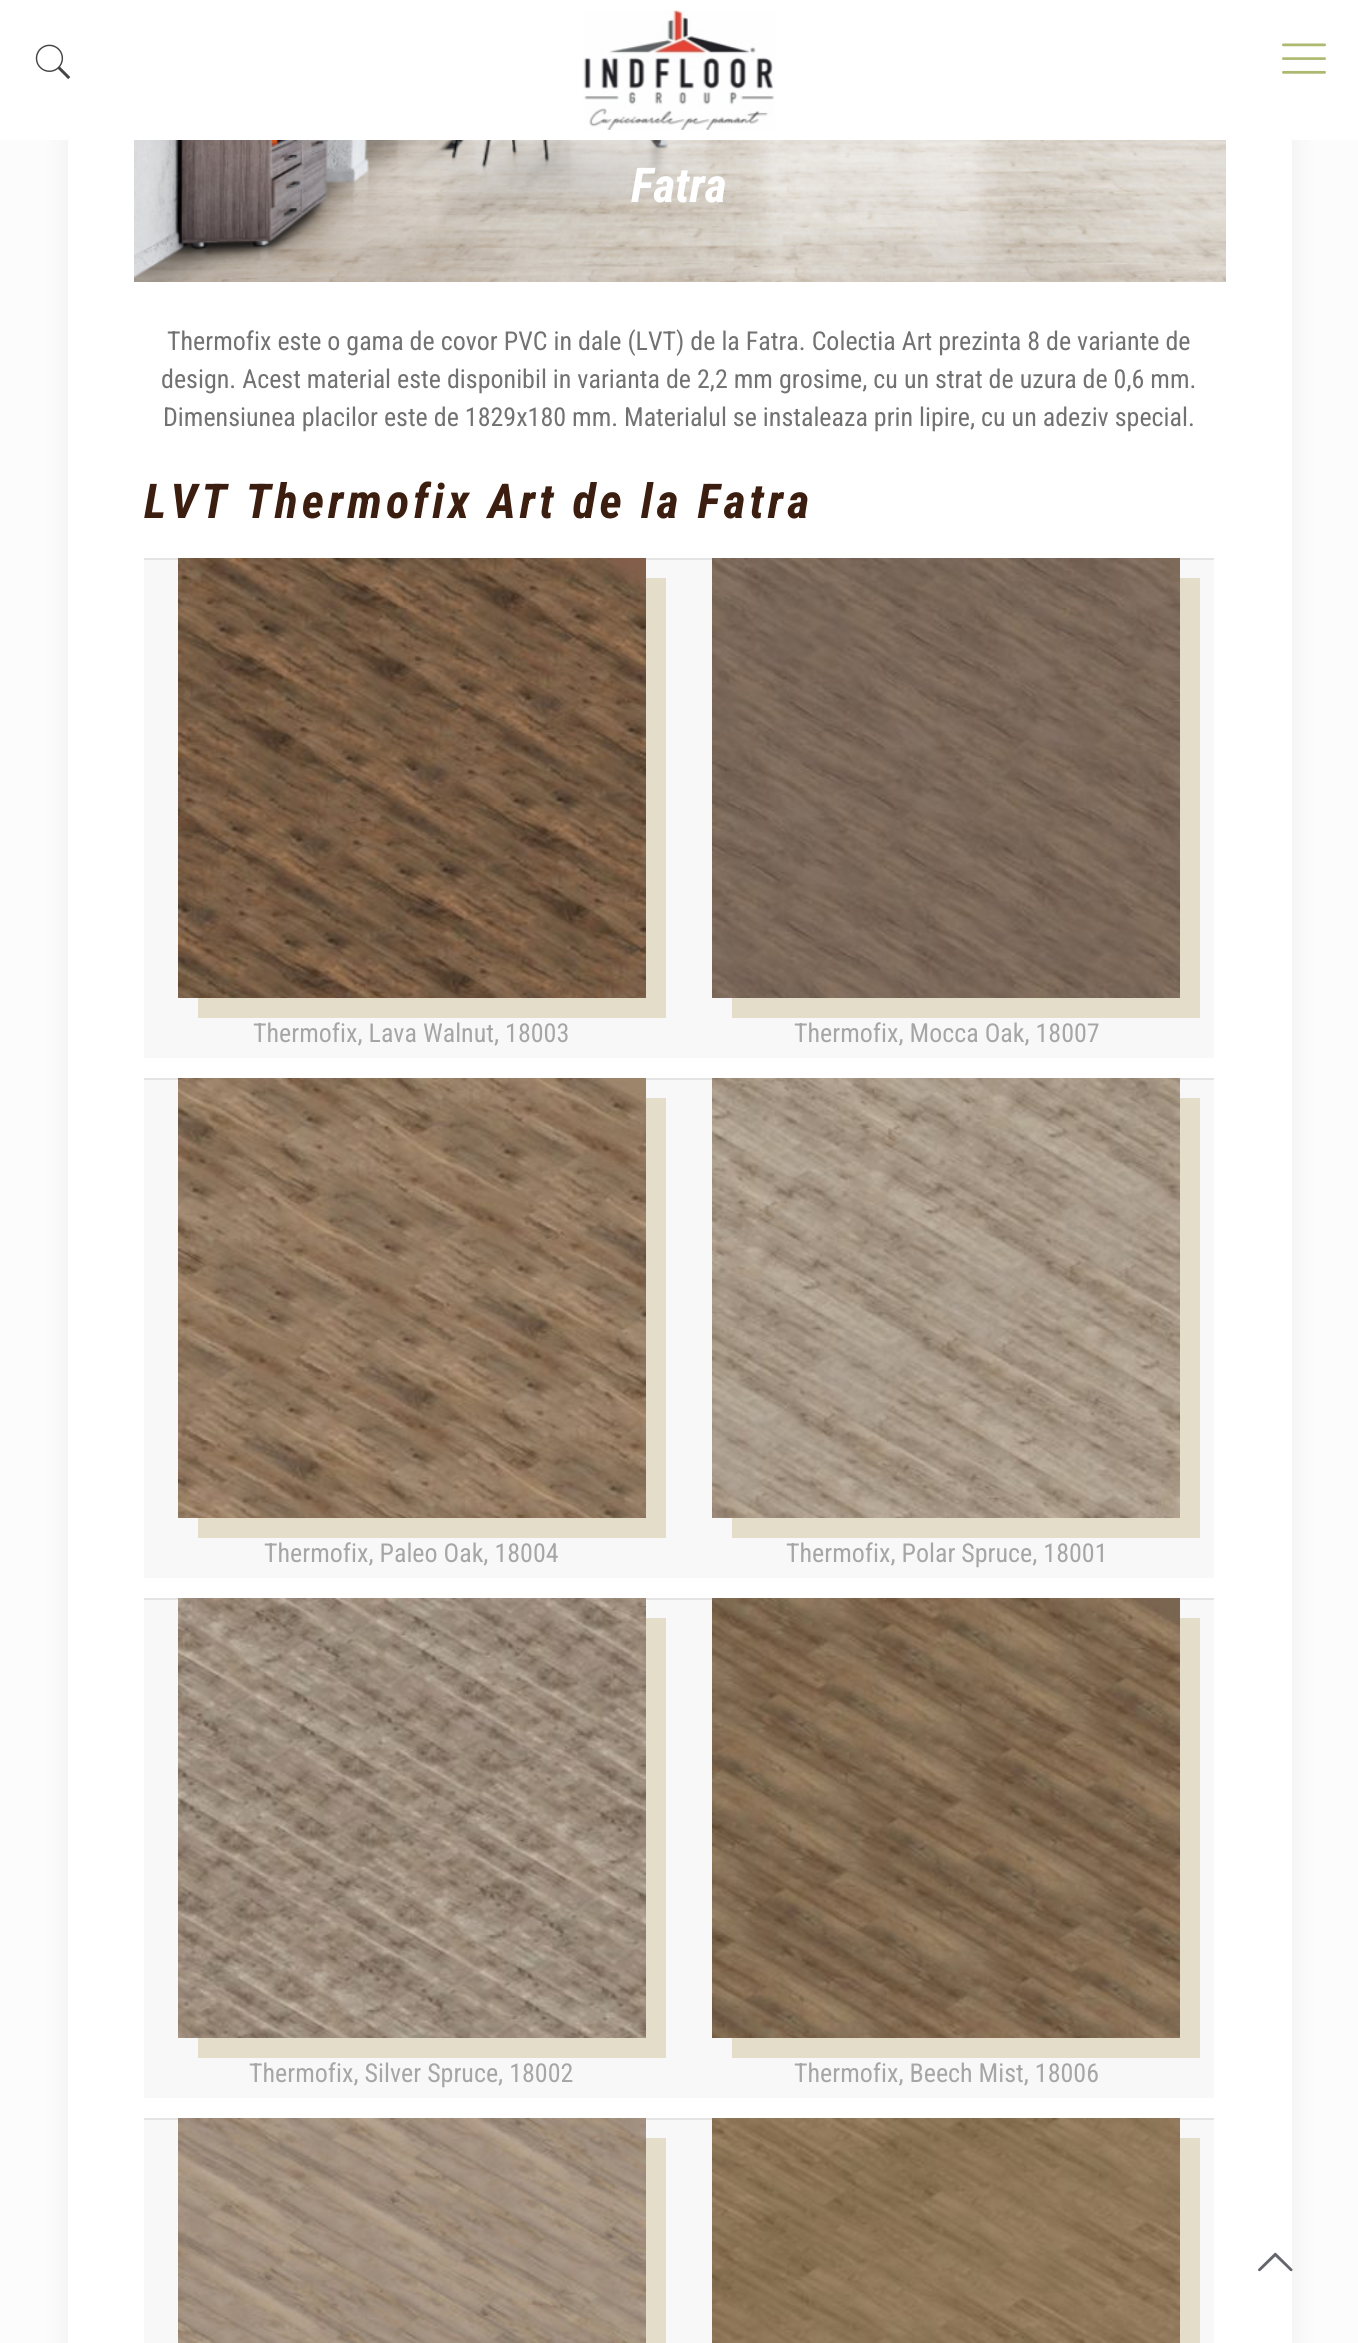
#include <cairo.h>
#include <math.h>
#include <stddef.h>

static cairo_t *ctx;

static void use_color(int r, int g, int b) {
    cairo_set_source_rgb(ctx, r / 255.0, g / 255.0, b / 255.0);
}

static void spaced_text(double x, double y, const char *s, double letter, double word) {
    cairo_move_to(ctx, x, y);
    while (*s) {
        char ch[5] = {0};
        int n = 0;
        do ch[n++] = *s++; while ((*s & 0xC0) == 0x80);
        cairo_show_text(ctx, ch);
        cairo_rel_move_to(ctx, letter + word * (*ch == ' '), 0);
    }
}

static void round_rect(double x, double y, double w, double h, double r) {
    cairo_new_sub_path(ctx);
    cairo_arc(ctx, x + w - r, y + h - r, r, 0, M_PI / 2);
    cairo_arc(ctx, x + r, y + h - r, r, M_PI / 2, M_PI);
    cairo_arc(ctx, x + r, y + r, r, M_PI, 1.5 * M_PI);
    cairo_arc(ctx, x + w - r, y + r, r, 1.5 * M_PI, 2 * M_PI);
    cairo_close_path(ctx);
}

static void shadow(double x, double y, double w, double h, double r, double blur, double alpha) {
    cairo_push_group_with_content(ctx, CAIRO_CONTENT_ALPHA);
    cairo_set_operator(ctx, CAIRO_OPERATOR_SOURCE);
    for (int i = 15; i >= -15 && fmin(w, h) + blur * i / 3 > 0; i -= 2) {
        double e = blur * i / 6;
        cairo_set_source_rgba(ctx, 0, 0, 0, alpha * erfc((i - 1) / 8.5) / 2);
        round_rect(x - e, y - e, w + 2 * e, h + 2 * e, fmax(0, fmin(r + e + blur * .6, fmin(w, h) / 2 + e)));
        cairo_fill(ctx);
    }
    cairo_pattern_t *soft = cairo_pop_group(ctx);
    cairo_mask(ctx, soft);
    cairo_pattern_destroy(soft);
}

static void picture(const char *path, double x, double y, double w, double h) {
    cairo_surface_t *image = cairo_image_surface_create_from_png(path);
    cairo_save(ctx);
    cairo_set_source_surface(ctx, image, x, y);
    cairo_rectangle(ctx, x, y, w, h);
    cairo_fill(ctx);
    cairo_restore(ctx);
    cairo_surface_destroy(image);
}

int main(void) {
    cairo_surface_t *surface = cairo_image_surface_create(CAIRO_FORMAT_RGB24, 1358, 2343);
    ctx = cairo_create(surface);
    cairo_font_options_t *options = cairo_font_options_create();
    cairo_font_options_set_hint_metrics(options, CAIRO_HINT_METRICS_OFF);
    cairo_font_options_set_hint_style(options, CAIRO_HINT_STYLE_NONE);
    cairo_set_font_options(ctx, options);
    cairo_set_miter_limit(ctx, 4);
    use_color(252, 252, 252);
    cairo_paint(ctx);
    use_color(0, 0, 0);
    shadow(68, -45, 1224, 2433, 0, 15, 0.06);
    use_color(255, 255, 255);
    cairo_rectangle(ctx, 68, 140, 1224, 2203);
    cairo_fill(ctx);
    cairo_rectangle(ctx, 0, 0, 1358, 140);
    cairo_fill(ctx);
    picture("img1.png", 35, 44, 36, 36);
    picture("img2.png", 583, 10, 192, 120);
    picture("img3.png", 1282, 43, 44, 31);
    picture("img4.png", 134, 140, 1092, 142);
    cairo_select_font_face(ctx, "Roboto Condensed", CAIRO_FONT_SLANT_ITALIC, CAIRO_FONT_WEIGHT_BOLD);
    cairo_set_font_size(ctx, 48);
    cairo_move_to(ctx, 631, 202);
    cairo_show_text(ctx, "Fatra");
    cairo_select_font_face(ctx, "Roboto Condensed", CAIRO_FONT_SLANT_NORMAL, CAIRO_FONT_WEIGHT_NORMAL);
    cairo_set_font_size(ctx, 26);
    use_color(114, 114, 114);
    cairo_move_to(ctx, 167, 350);
    cairo_show_text(ctx, "Thermofix este o gama de covor PVC in dale (LVT) de la Fatra. Colectia Art prezinta 8 de variante de");
    cairo_move_to(ctx, 161, 388);
    cairo_show_text(ctx, "design. Acest material este disponibil in varianta de 2,2 mm grosime, cu un strat de uzura de 0,6 mm.");
    cairo_move_to(ctx, 163, 426);
    cairo_show_text(ctx, "Dimensiunea placilor este de 1829x180 mm. Materialul se instaleaza prin lipire, cu un adeziv special.");
    cairo_select_font_face(ctx, "Roboto Condensed", CAIRO_FONT_SLANT_ITALIC, CAIRO_FONT_WEIGHT_BOLD);
    cairo_set_font_size(ctx, 48);
    use_color(59, 30, 15);
    spaced_text(144, 518, "LVT Thermofix Art de la Fatra", 4, 0);
    use_color(248, 248, 248);
    cairo_rectangle(ctx, 144, 560, 1070, 498);
    cairo_fill(ctx);
    use_color(228, 221, 202);
    cairo_new_path(ctx);
    cairo_move_to(ctx, 198, 998);
    cairo_line_to(ctx, 198, 1018);
    cairo_line_to(ctx, 666, 1018);
    cairo_line_to(ctx, 666, 578);
    cairo_line_to(ctx, 646, 578);
    cairo_line_to(ctx, 646, 998);
    cairo_close_path(ctx);
    cairo_fill(ctx);
    use_color(228, 228, 228);
    cairo_rectangle(ctx, 144, 558, 1070, 2);
    cairo_fill(ctx);
    picture("img5.png", 178, 558, 468, 440);
    cairo_select_font_face(ctx, "Roboto Condensed", CAIRO_FONT_SLANT_NORMAL, CAIRO_FONT_WEIGHT_NORMAL);
    cairo_set_font_size(ctx, 26);
    use_color(166, 166, 166);
    cairo_move_to(ctx, 253, 1042);
    cairo_show_text(ctx, "Thermofix, Lava Walnut, 18003");
    use_color(228, 221, 202);
    cairo_new_path(ctx);
    cairo_move_to(ctx, 732, 998);
    cairo_line_to(ctx, 732, 1018);
    cairo_line_to(ctx, 1200, 1018);
    cairo_line_to(ctx, 1200, 578);
    cairo_line_to(ctx, 1180, 578);
    cairo_line_to(ctx, 1180, 998);
    cairo_close_path(ctx);
    cairo_fill(ctx);
    picture("img6.png", 712, 558, 468, 440);
    use_color(166, 166, 166);
    cairo_move_to(ctx, 794, 1042);
    cairo_show_text(ctx, "Thermofix, Mocca Oak, 18007");
    use_color(248, 248, 248);
    cairo_rectangle(ctx, 144, 1080, 1070, 498);
    cairo_fill(ctx);
    use_color(228, 221, 202);
    cairo_new_path(ctx);
    cairo_move_to(ctx, 198, 1518);
    cairo_line_to(ctx, 198, 1538);
    cairo_line_to(ctx, 666, 1538);
    cairo_line_to(ctx, 666, 1098);
    cairo_line_to(ctx, 646, 1098);
    cairo_line_to(ctx, 646, 1518);
    cairo_close_path(ctx);
    cairo_fill(ctx);
    use_color(228, 228, 228);
    cairo_rectangle(ctx, 144, 1078, 1070, 2);
    cairo_fill(ctx);
    picture("img7.png", 178, 1078, 468, 440);
    use_color(166, 166, 166);
    cairo_move_to(ctx, 264, 1562);
    cairo_show_text(ctx, "Thermofix, Paleo Oak, 18004");
    use_color(228, 221, 202);
    cairo_new_path(ctx);
    cairo_move_to(ctx, 732, 1518);
    cairo_line_to(ctx, 732, 1538);
    cairo_line_to(ctx, 1200, 1538);
    cairo_line_to(ctx, 1200, 1098);
    cairo_line_to(ctx, 1180, 1098);
    cairo_line_to(ctx, 1180, 1518);
    cairo_close_path(ctx);
    cairo_fill(ctx);
    picture("img8.png", 712, 1078, 468, 440);
    use_color(166, 166, 166);
    cairo_move_to(ctx, 786, 1562);
    cairo_show_text(ctx, "Thermofix, Polar Spruce, 18001");
    use_color(248, 248, 248);
    cairo_rectangle(ctx, 144, 1600, 1070, 498);
    cairo_fill(ctx);
    use_color(228, 221, 202);
    cairo_new_path(ctx);
    cairo_move_to(ctx, 198, 2038);
    cairo_line_to(ctx, 198, 2058);
    cairo_line_to(ctx, 666, 2058);
    cairo_line_to(ctx, 666, 1618);
    cairo_line_to(ctx, 646, 1618);
    cairo_line_to(ctx, 646, 2038);
    cairo_close_path(ctx);
    cairo_fill(ctx);
    use_color(228, 228, 228);
    cairo_rectangle(ctx, 144, 1598, 1070, 2);
    cairo_fill(ctx);
    picture("img9.png", 178, 1598, 468, 440);
    use_color(166, 166, 166);
    cairo_move_to(ctx, 249, 2082);
    cairo_show_text(ctx, "Thermofix, Silver Spruce, 18002");
    use_color(228, 221, 202);
    cairo_new_path(ctx);
    cairo_move_to(ctx, 732, 2038);
    cairo_line_to(ctx, 732, 2058);
    cairo_line_to(ctx, 1200, 2058);
    cairo_line_to(ctx, 1200, 1618);
    cairo_line_to(ctx, 1180, 1618);
    cairo_line_to(ctx, 1180, 2038);
    cairo_close_path(ctx);
    cairo_fill(ctx);
    picture("img10.png", 712, 1598, 468, 440);
    use_color(166, 166, 166);
    cairo_move_to(ctx, 794, 2082);
    cairo_show_text(ctx, "Thermofix, Beech Mist, 18006");
    use_color(248, 248, 248);
    cairo_rectangle(ctx, 144, 2120, 1070, 223);
    cairo_fill(ctx);
    use_color(228, 228, 228);
    cairo_rectangle(ctx, 144, 2118, 1070, 2);
    cairo_fill(ctx);
    use_color(228, 221, 202);
    cairo_new_path(ctx);
    cairo_move_to(ctx, 198, 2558);
    cairo_line_to(ctx, 198, 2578);
    cairo_line_to(ctx, 666, 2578);
    cairo_line_to(ctx, 666, 2138);
    cairo_line_to(ctx, 646, 2138);
    cairo_line_to(ctx, 646, 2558);
    cairo_close_path(ctx);
    cairo_fill(ctx);
    picture("img11.png", 178, 2118, 468, 225);
    cairo_new_path(ctx);
    cairo_move_to(ctx, 732, 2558);
    cairo_line_to(ctx, 732, 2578);
    cairo_line_to(ctx, 1200, 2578);
    cairo_line_to(ctx, 1200, 2138);
    cairo_line_to(ctx, 1180, 2138);
    cairo_line_to(ctx, 1180, 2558);
    cairo_close_path(ctx);
    cairo_fill(ctx);
    picture("img12.png", 712, 2118, 468, 225);
    picture("img13.png", 1258, 2252, 35, 20);
    cairo_surface_write_to_png(surface, "result.png");
    cairo_font_options_destroy(options);
    cairo_destroy(ctx);
    cairo_surface_destroy(surface);
    return 0;
}
